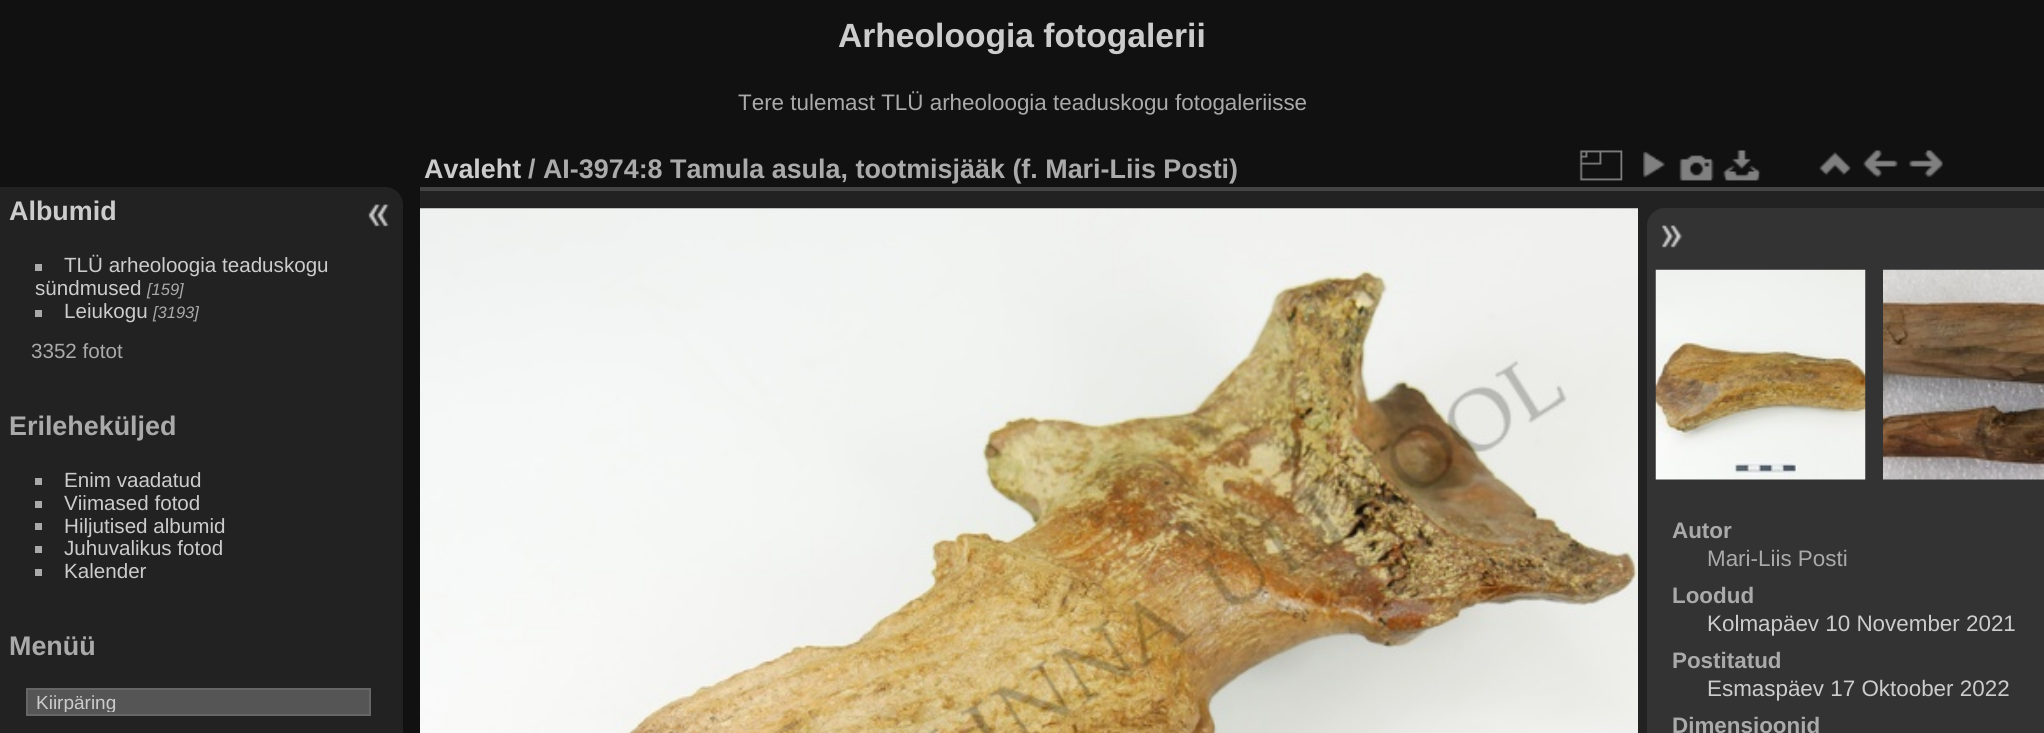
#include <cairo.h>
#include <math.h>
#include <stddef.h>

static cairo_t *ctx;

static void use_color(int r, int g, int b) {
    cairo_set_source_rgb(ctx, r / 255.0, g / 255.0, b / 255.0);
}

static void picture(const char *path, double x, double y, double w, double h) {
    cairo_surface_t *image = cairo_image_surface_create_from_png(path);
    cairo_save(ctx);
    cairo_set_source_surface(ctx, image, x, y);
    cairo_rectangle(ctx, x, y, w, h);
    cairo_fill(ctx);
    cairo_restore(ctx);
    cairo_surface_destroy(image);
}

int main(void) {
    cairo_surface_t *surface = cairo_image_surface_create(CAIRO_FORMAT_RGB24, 2044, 733);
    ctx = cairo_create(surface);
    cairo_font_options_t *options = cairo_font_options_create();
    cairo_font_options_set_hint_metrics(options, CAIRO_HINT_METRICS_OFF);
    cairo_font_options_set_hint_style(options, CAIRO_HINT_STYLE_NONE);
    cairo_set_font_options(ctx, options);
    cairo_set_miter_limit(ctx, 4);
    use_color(17, 17, 17);
    cairo_paint(ctx);
    cairo_select_font_face(ctx, "Liberation Sans", CAIRO_FONT_SLANT_NORMAL, CAIRO_FONT_WEIGHT_BOLD);
    cairo_set_font_size(ctx, 33.6);
    use_color(204, 204, 204);
    cairo_move_to(ctx, 838, 47);
    cairo_show_text(ctx, "Arheoloogia fotogalerii");
    cairo_select_font_face(ctx, "Liberation Sans", CAIRO_FONT_SLANT_NORMAL, CAIRO_FONT_WEIGHT_NORMAL);
    cairo_set_font_size(ctx, 22.4);
    use_color(170, 170, 170);
    cairo_move_to(ctx, 738, 110);
    cairo_show_text(ctx, "Tere tulemast TLÜ arheoloogia teaduskogu fotogaleriisse");
    use_color(34, 34, 34);
    cairo_new_path(ctx);
    cairo_move_to(ctx, 0, 187);
    cairo_line_to(ctx, 385, 187);
    cairo_curve_to(ctx, 395, 187, 403, 195, 403, 205);
    cairo_line_to(ctx, 403, 733);
    cairo_curve_to(ctx, 403, 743, 395, 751, 385, 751);
    cairo_line_to(ctx, 0, 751);
    cairo_close_path(ctx);
    cairo_fill(ctx);
    cairo_select_font_face(ctx, "Liberation Sans", CAIRO_FONT_SLANT_NORMAL, CAIRO_FONT_WEIGHT_BOLD);
    cairo_set_font_size(ctx, 26.9);
    use_color(204, 204, 204);
    cairo_move_to(ctx, 9, 220);
    cairo_show_text(ctx, "Albumid");
    use_color(170, 170, 170);
    cairo_rectangle(ctx, 35, 264, 7, 7);
    cairo_fill(ctx);
    cairo_select_font_face(ctx, "Liberation Sans", CAIRO_FONT_SLANT_NORMAL, CAIRO_FONT_WEIGHT_NORMAL);
    cairo_set_font_size(ctx, 20.6);
    use_color(204, 204, 204);
    cairo_move_to(ctx, 64, 272);
    cairo_show_text(ctx, "TLÜ arheoloogia teaduskogu");
    cairo_move_to(ctx, 35, 295);
    cairo_show_text(ctx, "sündmused");
    cairo_select_font_face(ctx, "Liberation Sans", CAIRO_FONT_SLANT_ITALIC, CAIRO_FONT_WEIGHT_NORMAL);
    cairo_set_font_size(ctx, 16.5);
    use_color(170, 170, 170);
    cairo_move_to(ctx, 147, 295);
    cairo_show_text(ctx, "[159]");
    cairo_rectangle(ctx, 35, 310, 7, 7);
    cairo_fill(ctx);
    cairo_select_font_face(ctx, "Liberation Sans", CAIRO_FONT_SLANT_NORMAL, CAIRO_FONT_WEIGHT_NORMAL);
    cairo_set_font_size(ctx, 20.6);
    use_color(204, 204, 204);
    cairo_move_to(ctx, 64, 318);
    cairo_show_text(ctx, "Leiukogu");
    cairo_select_font_face(ctx, "Liberation Sans", CAIRO_FONT_SLANT_ITALIC, CAIRO_FONT_WEIGHT_NORMAL);
    cairo_set_font_size(ctx, 16.5);
    use_color(170, 170, 170);
    cairo_move_to(ctx, 153, 318);
    cairo_show_text(ctx, "[3193]");
    cairo_select_font_face(ctx, "Liberation Sans", CAIRO_FONT_SLANT_NORMAL, CAIRO_FONT_WEIGHT_NORMAL);
    cairo_set_font_size(ctx, 20.6);
    cairo_move_to(ctx, 31, 358);
    cairo_show_text(ctx, "3352 fotot");
    cairo_select_font_face(ctx, "Liberation Sans", CAIRO_FONT_SLANT_NORMAL, CAIRO_FONT_WEIGHT_BOLD);
    cairo_set_font_size(ctx, 26.9);
    cairo_move_to(ctx, 9, 435);
    cairo_show_text(ctx, "Erileheküljed");
    cairo_rectangle(ctx, 35, 478, 7, 7);
    cairo_fill(ctx);
    cairo_select_font_face(ctx, "Liberation Sans", CAIRO_FONT_SLANT_NORMAL, CAIRO_FONT_WEIGHT_NORMAL);
    cairo_set_font_size(ctx, 20.6);
    use_color(204, 204, 204);
    cairo_move_to(ctx, 64, 487);
    cairo_show_text(ctx, "Enim vaadatud");
    use_color(170, 170, 170);
    cairo_rectangle(ctx, 35, 501, 7, 7);
    cairo_fill(ctx);
    use_color(204, 204, 204);
    cairo_move_to(ctx, 64, 510);
    cairo_show_text(ctx, "Viimased fotod");
    use_color(170, 170, 170);
    cairo_rectangle(ctx, 35, 523, 7, 7);
    cairo_fill(ctx);
    use_color(204, 204, 204);
    cairo_move_to(ctx, 64, 533);
    cairo_show_text(ctx, "Hiljutised albumid");
    use_color(170, 170, 170);
    cairo_rectangle(ctx, 35, 546, 7, 7);
    cairo_fill(ctx);
    use_color(204, 204, 204);
    cairo_move_to(ctx, 64, 555);
    cairo_show_text(ctx, "Juhuvalikus fotod");
    use_color(170, 170, 170);
    cairo_rectangle(ctx, 35, 569, 7, 7);
    cairo_fill(ctx);
    use_color(204, 204, 204);
    cairo_move_to(ctx, 64, 578);
    cairo_show_text(ctx, "Kalender");
    cairo_select_font_face(ctx, "Liberation Sans", CAIRO_FONT_SLANT_NORMAL, CAIRO_FONT_WEIGHT_BOLD);
    cairo_set_font_size(ctx, 26.9);
    use_color(170, 170, 170);
    cairo_move_to(ctx, 9, 655);
    cairo_show_text(ctx, "Menüü");
    use_color(85, 85, 85);
    cairo_rectangle(ctx, 27, 689, 343, 26);
    cairo_fill_preserve(ctx);
    use_color(102, 102, 102);
    cairo_stroke(ctx);
    cairo_save(ctx);
    cairo_rectangle(ctx, 32, 691, 334, 21);
    cairo_clip(ctx);
    cairo_select_font_face(ctx, "Liberation Sans", CAIRO_FONT_SLANT_NORMAL, CAIRO_FONT_WEIGHT_NORMAL);
    cairo_set_font_size(ctx, 19);
    use_color(204, 204, 204);
    cairo_move_to(ctx, 36, 709);
    cairo_show_text(ctx, "Kiirpäring");
    cairo_restore(ctx);
    picture("img1.png", 367, 204, 22, 23);
    use_color(34, 34, 34);
    cairo_rectangle(ctx, 420, 191, 1624, 542);
    cairo_fill(ctx);
    use_color(68, 68, 68);
    cairo_rectangle(ctx, 420, 187, 1624, 4);
    cairo_fill(ctx);
    use_color(204, 204, 204);
    cairo_move_to(ctx, 424, 178);
    cairo_show_text(ctx, "Avaleht");
    use_color(170, 170, 170);
    cairo_move_to(ctx, 528, 178);
    cairo_show_text(ctx, "/ AI-3974:8 Tamula asula, tootmisjääk (f. Mari-Liis Posti)");
    picture("img2.png", 1579, 150, 44, 31);
    picture("img3.png", 1643, 151, 22, 27);
    picture("img4.png", 1679, 155, 35, 26);
    picture("img5.png", 1723, 150, 38, 31);
    picture("img6.png", 1819, 152, 32, 24);
    picture("img7.png", 1863, 150, 35, 28);
    picture("img8.png", 1909, 150, 34, 28);
    picture("img9.png", 420, 208, 1218, 525);
    use_color(51, 51, 51);
    cairo_new_path(ctx);
    cairo_move_to(ctx, 1665, 208);
    cairo_line_to(ctx, 2044, 208);
    cairo_line_to(ctx, 2044, 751);
    cairo_line_to(ctx, 1665, 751);
    cairo_curve_to(ctx, 1655, 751, 1647, 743, 1647, 733);
    cairo_line_to(ctx, 1647, 226);
    cairo_curve_to(ctx, 1647, 216, 1655, 208, 1665, 208);
    cairo_close_path(ctx);
    cairo_fill(ctx);
    picture("img10.png", 1661, 225, 22, 23);
    picture("img11.png", 1655, 269, 211, 211);
    picture("img12.png", 1883, 269, 161, 211);
    cairo_set_font_size(ctx, 22.4);
    use_color(170, 170, 170);
    cairo_move_to(ctx, 1672, 538);
    cairo_show_text(ctx, "Autor");
    cairo_select_font_face(ctx, "Liberation Sans", CAIRO_FONT_SLANT_NORMAL, CAIRO_FONT_WEIGHT_NORMAL);
    cairo_move_to(ctx, 1707, 566);
    cairo_show_text(ctx, "Mari-Liis Posti");
    cairo_select_font_face(ctx, "Liberation Sans", CAIRO_FONT_SLANT_NORMAL, CAIRO_FONT_WEIGHT_BOLD);
    cairo_move_to(ctx, 1672, 603);
    cairo_show_text(ctx, "Loodud");
    cairo_select_font_face(ctx, "Liberation Sans", CAIRO_FONT_SLANT_NORMAL, CAIRO_FONT_WEIGHT_NORMAL);
    use_color(204, 204, 204);
    cairo_move_to(ctx, 1707, 631);
    cairo_show_text(ctx, "Kolmapäev 10 November 2021");
    cairo_select_font_face(ctx, "Liberation Sans", CAIRO_FONT_SLANT_NORMAL, CAIRO_FONT_WEIGHT_BOLD);
    use_color(170, 170, 170);
    cairo_move_to(ctx, 1672, 668);
    cairo_show_text(ctx, "Postitatud");
    cairo_select_font_face(ctx, "Liberation Sans", CAIRO_FONT_SLANT_NORMAL, CAIRO_FONT_WEIGHT_NORMAL);
    use_color(204, 204, 204);
    cairo_move_to(ctx, 1707, 696);
    cairo_show_text(ctx, "Esmaspäev 17 Oktoober 2022");
    cairo_select_font_face(ctx, "Liberation Sans", CAIRO_FONT_SLANT_NORMAL, CAIRO_FONT_WEIGHT_BOLD);
    use_color(170, 170, 170);
    cairo_move_to(ctx, 1672, 733);
    cairo_show_text(ctx, "Dimensioonid");
    cairo_surface_write_to_png(surface, "result.png");
    cairo_font_options_destroy(options);
    cairo_destroy(ctx);
    cairo_surface_destroy(surface);
    return 0;
}
